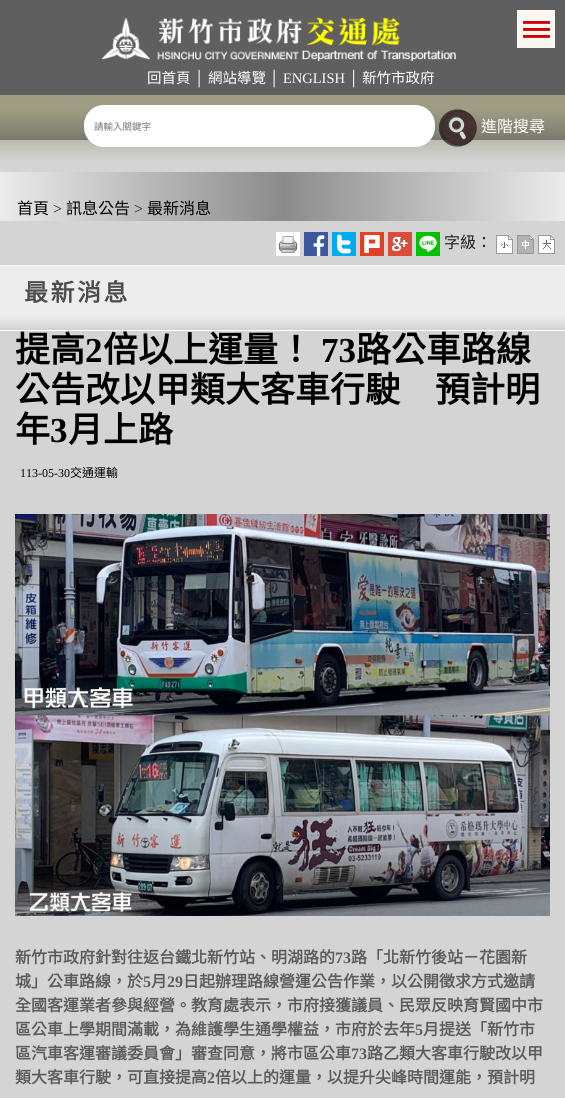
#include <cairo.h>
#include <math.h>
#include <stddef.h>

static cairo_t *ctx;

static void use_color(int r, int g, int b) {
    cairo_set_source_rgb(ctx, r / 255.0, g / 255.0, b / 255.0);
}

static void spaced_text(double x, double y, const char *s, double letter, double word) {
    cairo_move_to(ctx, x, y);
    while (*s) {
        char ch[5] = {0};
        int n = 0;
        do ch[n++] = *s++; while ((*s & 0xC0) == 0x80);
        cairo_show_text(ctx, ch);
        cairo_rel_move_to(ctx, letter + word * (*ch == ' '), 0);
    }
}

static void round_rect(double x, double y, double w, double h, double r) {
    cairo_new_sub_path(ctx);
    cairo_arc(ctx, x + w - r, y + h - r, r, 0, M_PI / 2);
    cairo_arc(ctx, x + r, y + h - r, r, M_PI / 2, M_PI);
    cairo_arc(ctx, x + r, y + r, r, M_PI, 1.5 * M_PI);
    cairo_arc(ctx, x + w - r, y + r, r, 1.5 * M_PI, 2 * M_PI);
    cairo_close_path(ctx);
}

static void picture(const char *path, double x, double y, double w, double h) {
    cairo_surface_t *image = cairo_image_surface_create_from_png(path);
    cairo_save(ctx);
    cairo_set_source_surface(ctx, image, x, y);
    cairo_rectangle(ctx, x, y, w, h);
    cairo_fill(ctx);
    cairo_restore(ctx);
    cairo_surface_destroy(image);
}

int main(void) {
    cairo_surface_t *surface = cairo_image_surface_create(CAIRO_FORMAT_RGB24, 565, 1098);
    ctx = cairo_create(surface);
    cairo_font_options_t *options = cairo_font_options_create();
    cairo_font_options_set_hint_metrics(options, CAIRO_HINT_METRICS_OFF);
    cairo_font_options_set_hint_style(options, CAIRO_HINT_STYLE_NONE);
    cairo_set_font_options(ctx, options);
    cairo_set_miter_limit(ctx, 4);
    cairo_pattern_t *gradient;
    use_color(212, 212, 212);
    cairo_paint(ctx);
    use_color(95, 95, 95);
    cairo_rectangle(ctx, 0, 0, 565, 140);
    cairo_fill(ctx);
    picture("img1.png", 517, 10, 38, 38);
    picture("img2.png", 102, 17, 354, 44);
    cairo_select_font_face(ctx, "Noto Sans CJK TC", CAIRO_FONT_SLANT_NORMAL, CAIRO_FONT_WEIGHT_NORMAL);
    cairo_set_font_size(ctx, 14.5);
    use_color(255, 255, 255);
    cairo_move_to(ctx, 147, 83);
    cairo_show_text(ctx, "回首頁");
    cairo_select_font_face(ctx, "Liberation Serif", CAIRO_FONT_SLANT_NORMAL, CAIRO_FONT_WEIGHT_NORMAL);
    cairo_move_to(ctx, 194, 83);
    cairo_show_text(ctx, "│");
    cairo_select_font_face(ctx, "Noto Sans CJK TC", CAIRO_FONT_SLANT_NORMAL, CAIRO_FONT_WEIGHT_NORMAL);
    cairo_move_to(ctx, 208, 83);
    cairo_show_text(ctx, "網站導覽");
    cairo_select_font_face(ctx, "Liberation Serif", CAIRO_FONT_SLANT_NORMAL, CAIRO_FONT_WEIGHT_NORMAL);
    cairo_move_to(ctx, 269, 83);
    cairo_show_text(ctx, "│ ENGLISH │");
    cairo_select_font_face(ctx, "Noto Sans CJK TC", CAIRO_FONT_SLANT_NORMAL, CAIRO_FONT_WEIGHT_NORMAL);
    cairo_move_to(ctx, 362, 83);
    cairo_show_text(ctx, "新竹市政府");
    picture("img3.png", 0, 95, 565, 65);
    round_rect(84, 105, 351, 42, 20);
    cairo_fill(ctx);
    cairo_set_font_size(ctx, 9.5);
    use_color(117, 117, 117);
    cairo_move_to(ctx, 94, 130);
    cairo_show_text(ctx, "請輸入關鍵字");
    picture("img4.png", 439, 109, 38, 38);
    cairo_set_font_size(ctx, 16);
    use_color(255, 255, 255);
    cairo_move_to(ctx, 481, 132);
    cairo_show_text(ctx, "進階搜尋");
    gradient = cairo_pattern_create_linear(565, 197, 0, 196);
    cairo_pattern_add_color_stop_rgba(gradient, 0, 0.922, 0.922, 0.922, 1);
    cairo_pattern_add_color_stop_rgba(gradient, 0.5, 0.545, 0.545, 0.545, 1);
    cairo_pattern_add_color_stop_rgba(gradient, 1, 0.922, 0.922, 0.922, 1);
    cairo_set_source(ctx, gradient);
    cairo_pattern_destroy(gradient);
    cairo_rectangle(ctx, 0, 172, 565, 49);
    cairo_fill(ctx);
    use_color(0, 0, 0);
    cairo_move_to(ctx, 17, 214);
    cairo_show_text(ctx, "首頁");
    cairo_select_font_face(ctx, "Liberation Serif", CAIRO_FONT_SLANT_NORMAL, CAIRO_FONT_WEIGHT_NORMAL);
    use_color(34, 34, 34);
    cairo_move_to(ctx, 53, 214);
    cairo_show_text(ctx, ">");
    cairo_select_font_face(ctx, "Noto Sans CJK TC", CAIRO_FONT_SLANT_NORMAL, CAIRO_FONT_WEIGHT_NORMAL);
    use_color(0, 0, 0);
    cairo_move_to(ctx, 66, 214);
    cairo_show_text(ctx, "訊息公告");
    cairo_select_font_face(ctx, "Liberation Serif", CAIRO_FONT_SLANT_NORMAL, CAIRO_FONT_WEIGHT_NORMAL);
    use_color(34, 34, 34);
    cairo_move_to(ctx, 134, 214);
    cairo_show_text(ctx, ">");
    cairo_select_font_face(ctx, "Noto Sans CJK TC", CAIRO_FONT_SLANT_NORMAL, CAIRO_FONT_WEIGHT_NORMAL);
    use_color(0, 0, 0);
    cairo_move_to(ctx, 147, 214);
    cairo_show_text(ctx, "最新消息");
    picture("img5.png", 276, 232, 24, 24);
    picture("img6.png", 304, 232, 24, 24);
    picture("img7.png", 332, 232, 24, 24);
    picture("img8.png", 360, 232, 24, 24);
    picture("img9.png", 388, 232, 24, 24);
    picture("img10.png", 416, 232, 24, 24);
    use_color(34, 34, 34);
    cairo_move_to(ctx, 444, 248);
    cairo_show_text(ctx, "字級：");
    picture("img11.png", 496, 235, 17, 19);
    picture("img12.png", 517, 235, 17, 19);
    picture("img13.png", 538, 235, 17, 19);
    gradient = cairo_pattern_create_linear(283, 266, 283, 330);
    cairo_pattern_add_color_stop_rgba(gradient, 0, 0.929, 0.929, 0.929, 1);
    cairo_pattern_add_color_stop_rgba(gradient, 0.77, 0.929, 0.929, 0.929, 1);
    cairo_pattern_add_color_stop_rgba(gradient, 1, 0.824, 0.824, 0.824, 1);
    cairo_set_source(ctx, gradient);
    cairo_pattern_destroy(gradient);
    cairo_rectangle(ctx, 0, 266, 565, 62);
    cairo_fill(ctx);
    use_color(255, 255, 255);
    cairo_rectangle(ctx, 0, 265, 565, 1);
    cairo_fill(ctx);
    cairo_rectangle(ctx, 0, 330, 565, 1);
    cairo_fill(ctx);
    cairo_select_font_face(ctx, "Noto Sans CJK TC", CAIRO_FONT_SLANT_NORMAL, CAIRO_FONT_WEIGHT_BOLD);
    cairo_set_font_size(ctx, 24);
    use_color(76, 76, 76);
    spaced_text(24, 301, "最新消息", 2.5, 0);
    cairo_set_font_size(ctx, 35);
    use_color(0, 0, 0);
    cairo_move_to(ctx, 15, 362);
    cairo_show_text(ctx, "提高");
    cairo_select_font_face(ctx, "Liberation Serif", CAIRO_FONT_SLANT_NORMAL, CAIRO_FONT_WEIGHT_BOLD);
    cairo_move_to(ctx, 85, 362);
    cairo_show_text(ctx, "2");
    cairo_select_font_face(ctx, "Noto Sans CJK TC", CAIRO_FONT_SLANT_NORMAL, CAIRO_FONT_WEIGHT_BOLD);
    cairo_move_to(ctx, 103, 362);
    cairo_show_text(ctx, "倍以上運量！");
    cairo_select_font_face(ctx, "Liberation Serif", CAIRO_FONT_SLANT_NORMAL, CAIRO_FONT_WEIGHT_BOLD);
    cairo_move_to(ctx, 321, 362);
    cairo_show_text(ctx, "73");
    cairo_select_font_face(ctx, "Noto Sans CJK TC", CAIRO_FONT_SLANT_NORMAL, CAIRO_FONT_WEIGHT_BOLD);
    cairo_move_to(ctx, 356, 362);
    cairo_show_text(ctx, "路公車路線");
    cairo_move_to(ctx, 15, 402);
    cairo_show_text(ctx, "公告改以甲類大客車行駛　預計明");
    cairo_move_to(ctx, 15, 442);
    cairo_show_text(ctx, "年");
    cairo_select_font_face(ctx, "Liberation Serif", CAIRO_FONT_SLANT_NORMAL, CAIRO_FONT_WEIGHT_BOLD);
    cairo_move_to(ctx, 50, 442);
    cairo_show_text(ctx, "3");
    cairo_select_font_face(ctx, "Noto Sans CJK TC", CAIRO_FONT_SLANT_NORMAL, CAIRO_FONT_WEIGHT_BOLD);
    cairo_move_to(ctx, 68, 442);
    cairo_show_text(ctx, "月上路");
    cairo_select_font_face(ctx, "Liberation Serif", CAIRO_FONT_SLANT_NORMAL, CAIRO_FONT_WEIGHT_NORMAL);
    cairo_set_font_size(ctx, 12);
    cairo_move_to(ctx, 20, 477);
    cairo_show_text(ctx, "113-05-30");
    cairo_select_font_face(ctx, "Noto Sans CJK TC", CAIRO_FONT_SLANT_NORMAL, CAIRO_FONT_WEIGHT_NORMAL);
    cairo_move_to(ctx, 70, 477);
    cairo_show_text(ctx, "交通運輸");
    picture("img14.png", 15, 514, 535, 402);
    cairo_select_font_face(ctx, "Noto Sans CJK TC", CAIRO_FONT_SLANT_NORMAL, CAIRO_FONT_WEIGHT_BOLD);
    cairo_set_font_size(ctx, 16);
    use_color(92, 92, 92);
    cairo_move_to(ctx, 15, 963);
    cairo_show_text(ctx, "新竹市政府針對往返台鐵北新竹站、明湖路的");
    cairo_select_font_face(ctx, "Liberation Serif", CAIRO_FONT_SLANT_NORMAL, CAIRO_FONT_WEIGHT_BOLD);
    cairo_move_to(ctx, 335, 963);
    cairo_show_text(ctx, "73");
    cairo_select_font_face(ctx, "Noto Sans CJK TC", CAIRO_FONT_SLANT_NORMAL, CAIRO_FONT_WEIGHT_BOLD);
    cairo_move_to(ctx, 351, 963);
    cairo_show_text(ctx, "路「北新竹後站－花園新");
    cairo_move_to(ctx, 15, 987);
    cairo_show_text(ctx, "城」公車路線，於");
    cairo_select_font_face(ctx, "Liberation Serif", CAIRO_FONT_SLANT_NORMAL, CAIRO_FONT_WEIGHT_BOLD);
    cairo_move_to(ctx, 143, 987);
    cairo_show_text(ctx, "5");
    cairo_select_font_face(ctx, "Noto Sans CJK TC", CAIRO_FONT_SLANT_NORMAL, CAIRO_FONT_WEIGHT_BOLD);
    cairo_move_to(ctx, 151, 987);
    cairo_show_text(ctx, "月");
    cairo_select_font_face(ctx, "Liberation Serif", CAIRO_FONT_SLANT_NORMAL, CAIRO_FONT_WEIGHT_BOLD);
    cairo_move_to(ctx, 167, 987);
    cairo_show_text(ctx, "29");
    cairo_select_font_face(ctx, "Noto Sans CJK TC", CAIRO_FONT_SLANT_NORMAL, CAIRO_FONT_WEIGHT_BOLD);
    cairo_move_to(ctx, 183, 987);
    cairo_show_text(ctx, "日起辦理路線營運公告作業，以公開徵求方式邀請");
    cairo_move_to(ctx, 15, 1011);
    cairo_show_text(ctx, "全國客運業者參與經營。教育處表示，市府接獲議員、民眾反映育賢國中市");
    cairo_move_to(ctx, 15, 1035);
    cairo_show_text(ctx, "區公車上學期間滿載，為維護學生通學權益，市府於去年");
    cairo_select_font_face(ctx, "Liberation Serif", CAIRO_FONT_SLANT_NORMAL, CAIRO_FONT_WEIGHT_BOLD);
    cairo_move_to(ctx, 415, 1035);
    cairo_show_text(ctx, "5");
    cairo_select_font_face(ctx, "Noto Sans CJK TC", CAIRO_FONT_SLANT_NORMAL, CAIRO_FONT_WEIGHT_BOLD);
    cairo_move_to(ctx, 423, 1035);
    cairo_show_text(ctx, "月提送「新竹市");
    cairo_move_to(ctx, 15, 1059);
    cairo_show_text(ctx, "區汽車客運審議委員會」審查同意，將市區公車");
    cairo_select_font_face(ctx, "Liberation Serif", CAIRO_FONT_SLANT_NORMAL, CAIRO_FONT_WEIGHT_BOLD);
    cairo_move_to(ctx, 351, 1059);
    cairo_show_text(ctx, "73");
    cairo_select_font_face(ctx, "Noto Sans CJK TC", CAIRO_FONT_SLANT_NORMAL, CAIRO_FONT_WEIGHT_BOLD);
    cairo_move_to(ctx, 367, 1059);
    cairo_show_text(ctx, "路乙類大客車行駛改以甲");
    cairo_move_to(ctx, 15, 1083);
    cairo_show_text(ctx, "類大客車行駛，可直接提高");
    cairo_select_font_face(ctx, "Liberation Serif", CAIRO_FONT_SLANT_NORMAL, CAIRO_FONT_WEIGHT_BOLD);
    cairo_move_to(ctx, 207, 1083);
    cairo_show_text(ctx, "2");
    cairo_select_font_face(ctx, "Noto Sans CJK TC", CAIRO_FONT_SLANT_NORMAL, CAIRO_FONT_WEIGHT_BOLD);
    cairo_move_to(ctx, 215, 1083);
    cairo_show_text(ctx, "倍以上的運量，以提升尖峰時間運能，預計明");
    cairo_surface_write_to_png(surface, "result.png");
    cairo_font_options_destroy(options);
    cairo_destroy(ctx);
    cairo_surface_destroy(surface);
    return 0;
}
